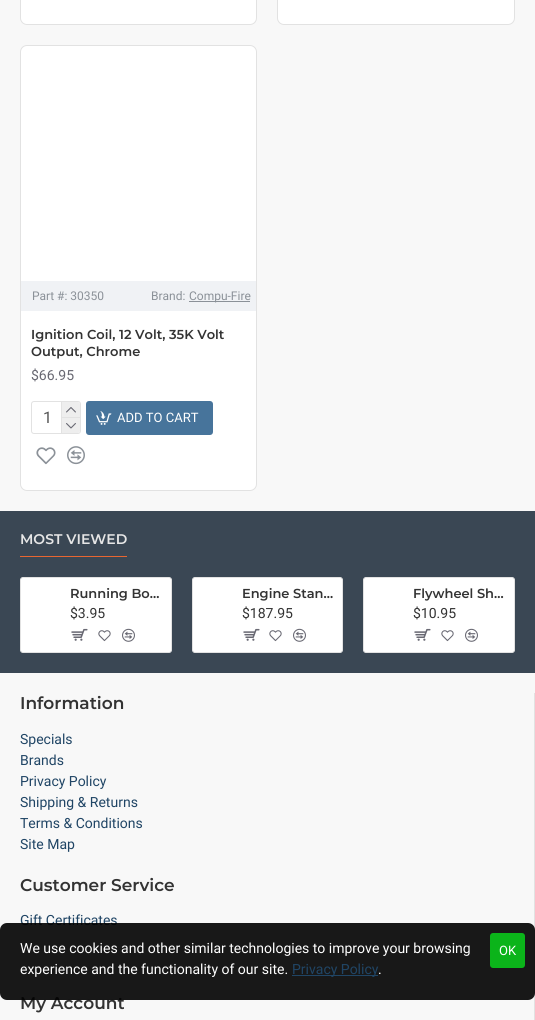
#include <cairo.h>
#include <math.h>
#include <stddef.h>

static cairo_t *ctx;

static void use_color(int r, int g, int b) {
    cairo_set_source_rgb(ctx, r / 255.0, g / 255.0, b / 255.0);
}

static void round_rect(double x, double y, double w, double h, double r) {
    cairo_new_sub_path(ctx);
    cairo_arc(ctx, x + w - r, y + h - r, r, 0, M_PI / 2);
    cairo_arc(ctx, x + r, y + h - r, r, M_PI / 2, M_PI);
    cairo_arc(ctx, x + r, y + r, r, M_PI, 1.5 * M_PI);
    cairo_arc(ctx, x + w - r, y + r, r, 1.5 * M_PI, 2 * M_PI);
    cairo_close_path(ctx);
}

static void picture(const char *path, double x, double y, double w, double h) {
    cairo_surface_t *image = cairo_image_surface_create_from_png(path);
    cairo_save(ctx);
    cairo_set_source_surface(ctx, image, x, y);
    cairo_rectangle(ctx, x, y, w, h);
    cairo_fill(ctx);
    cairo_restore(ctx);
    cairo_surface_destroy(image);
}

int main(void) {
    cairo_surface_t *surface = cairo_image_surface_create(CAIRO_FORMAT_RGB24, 535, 1020);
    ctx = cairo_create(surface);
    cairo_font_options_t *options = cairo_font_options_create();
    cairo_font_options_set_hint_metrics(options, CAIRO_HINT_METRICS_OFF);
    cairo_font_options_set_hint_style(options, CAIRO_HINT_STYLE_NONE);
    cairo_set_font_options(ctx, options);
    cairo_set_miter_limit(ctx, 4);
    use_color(248, 248, 248);
    cairo_paint(ctx);
    use_color(255, 255, 255);
    round_rect(20.5, -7.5, 236, 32, 6.5);
    cairo_fill_preserve(ctx);
    use_color(226, 226, 226);
    cairo_set_line_width(ctx, 1);
    cairo_stroke(ctx);
    use_color(255, 255, 255);
    round_rect(277.5, -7.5, 237, 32, 6.5);
    cairo_fill_preserve(ctx);
    use_color(226, 226, 226);
    cairo_stroke(ctx);
    use_color(255, 255, 255);
    round_rect(20.5, 45.5, 236, 445, 6.5);
    cairo_fill_preserve(ctx);
    use_color(226, 226, 226);
    cairo_stroke(ctx);
    use_color(240, 242, 245);
    cairo_rectangle(ctx, 21, 281, 235, 30);
    cairo_fill(ctx);
    cairo_select_font_face(ctx, "Roboto", CAIRO_FONT_SLANT_NORMAL, CAIRO_FONT_WEIGHT_NORMAL);
    cairo_set_font_size(ctx, 12);
    use_color(139, 145, 152);
    cairo_move_to(ctx, 32, 300);
    cairo_show_text(ctx, "Part #: 30350");
    cairo_move_to(ctx, 151, 300);
    cairo_show_text(ctx, "Brand:");
    cairo_rectangle(ctx, 189, 301, 61, 1);
    cairo_fill(ctx);
    cairo_move_to(ctx, 189, 300);
    cairo_show_text(ctx, "Compu-Fire");
    cairo_select_font_face(ctx, "Montserrat SemiBold", CAIRO_FONT_SLANT_NORMAL, CAIRO_FONT_WEIGHT_NORMAL);
    cairo_set_font_size(ctx, 13);
    use_color(51, 51, 51);
    cairo_move_to(ctx, 31, 339);
    cairo_show_text(ctx, "Ignition Coil, 12 Volt, 35K Volt");
    cairo_move_to(ctx, 31, 356);
    cairo_show_text(ctx, "Output, Chrome");
    cairo_select_font_face(ctx, "Roboto", CAIRO_FONT_SLANT_NORMAL, CAIRO_FONT_WEIGHT_NORMAL);
    cairo_set_font_size(ctx, 14);
    use_color(105, 105, 115);
    cairo_move_to(ctx, 31, 380);
    cairo_show_text(ctx, "$66.95");
    round_rect(31.5, 401.5, 49, 32, 2.5);
    use_color(226, 226, 226);
    cairo_stroke(ctx);
    cairo_set_font_size(ctx, 16);
    use_color(85, 85, 85);
    cairo_move_to(ctx, 43, 423);
    cairo_show_text(ctx, "1");
    use_color(226, 226, 226);
    cairo_rectangle(ctx, 61, 402, 1, 31);
    cairo_fill(ctx);
    use_color(238, 238, 238);
    cairo_new_path(ctx);
    cairo_move_to(ctx, 62, 402);
    cairo_line_to(ctx, 78, 402);
    cairo_curve_to(ctx, 79, 402, 80, 403, 80, 404);
    cairo_line_to(ctx, 80, 417);
    cairo_line_to(ctx, 62, 417);
    cairo_close_path(ctx);
    cairo_fill(ctx);
    use_color(226, 226, 226);
    cairo_rectangle(ctx, 62, 417, 18, 1);
    cairo_fill(ctx);
    picture("img1.png", 66, 407, 10, 6);
    use_color(238, 238, 238);
    cairo_new_path(ctx);
    cairo_move_to(ctx, 62, 418);
    cairo_line_to(ctx, 80, 418);
    cairo_line_to(ctx, 80, 431);
    cairo_curve_to(ctx, 80, 432, 79, 433, 78, 433);
    cairo_line_to(ctx, 62, 433);
    cairo_close_path(ctx);
    cairo_fill(ctx);
    picture("img2.png", 66, 423, 10, 6);
    use_color(71, 116, 155);
    round_rect(86, 401, 127, 34, 3);
    cairo_fill(ctx);
    picture("img3.png", 96, 411, 16, 14);
    cairo_set_font_size(ctx, 13);
    use_color(255, 255, 255);
    cairo_move_to(ctx, 117, 422);
    cairo_show_text(ctx, "ADD TO CART");
    picture("img4.png", 36, 447, 20, 18);
    picture("img5.png", 67, 446, 18, 19);
    use_color(58, 71, 84);
    cairo_rectangle(ctx, 0, 511, 535, 162);
    cairo_fill(ctx);
    use_color(233, 102, 49);
    cairo_rectangle(ctx, 20, 556, 107, 1);
    cairo_fill(ctx);
    cairo_select_font_face(ctx, "Montserrat SemiBold", CAIRO_FONT_SLANT_NORMAL, CAIRO_FONT_WEIGHT_NORMAL);
    cairo_set_font_size(ctx, 14);
    use_color(230, 230, 230);
    cairo_move_to(ctx, 20, 544);
    cairo_show_text(ctx, "MOST VIEWED");
    use_color(255, 255, 255);
    round_rect(20.5, 577.5, 151, 75, 2.5);
    cairo_fill_preserve(ctx);
    use_color(226, 226, 226);
    cairo_stroke(ctx);
    cairo_set_font_size(ctx, 13);
    use_color(51, 51, 51);
    cairo_move_to(ctx, 70, 598);
    cairo_show_text(ctx, "Running Bo…");
    cairo_select_font_face(ctx, "Roboto", CAIRO_FONT_SLANT_NORMAL, CAIRO_FONT_WEIGHT_NORMAL);
    cairo_set_font_size(ctx, 14);
    cairo_move_to(ctx, 70, 618);
    cairo_show_text(ctx, "$3.95");
    picture("img6.png", 71, 628, 17, 13);
    picture("img7.png", 98, 630, 13, 12);
    picture("img8.png", 122, 628, 13, 14);
    use_color(255, 255, 255);
    round_rect(192.5, 577.5, 150, 75, 2.5);
    cairo_fill_preserve(ctx);
    use_color(226, 226, 226);
    cairo_stroke(ctx);
    cairo_select_font_face(ctx, "Montserrat SemiBold", CAIRO_FONT_SLANT_NORMAL, CAIRO_FONT_WEIGHT_NORMAL);
    cairo_set_font_size(ctx, 13);
    use_color(51, 51, 51);
    cairo_move_to(ctx, 242, 598);
    cairo_show_text(ctx, "Engine Stan…");
    cairo_select_font_face(ctx, "Roboto", CAIRO_FONT_SLANT_NORMAL, CAIRO_FONT_WEIGHT_NORMAL);
    cairo_set_font_size(ctx, 14);
    cairo_move_to(ctx, 242, 618);
    cairo_show_text(ctx, "$187.95");
    picture("img6.png", 243, 628, 17, 13);
    picture("img7.png", 269, 630, 13, 12);
    picture("img8.png", 293, 628, 13, 14);
    use_color(255, 255, 255);
    round_rect(363.5, 577.5, 151, 75, 2.5);
    cairo_fill_preserve(ctx);
    use_color(226, 226, 226);
    cairo_stroke(ctx);
    cairo_select_font_face(ctx, "Montserrat SemiBold", CAIRO_FONT_SLANT_NORMAL, CAIRO_FONT_WEIGHT_NORMAL);
    cairo_set_font_size(ctx, 13);
    use_color(51, 51, 51);
    cairo_move_to(ctx, 413, 598);
    cairo_show_text(ctx, "Flywheel Sh…");
    cairo_select_font_face(ctx, "Roboto", CAIRO_FONT_SLANT_NORMAL, CAIRO_FONT_WEIGHT_NORMAL);
    cairo_set_font_size(ctx, 14);
    cairo_move_to(ctx, 413, 618);
    cairo_show_text(ctx, "$10.95");
    picture("img6.png", 414, 628, 17, 13);
    picture("img7.png", 441, 630, 13, 12);
    picture("img8.png", 465, 628, 13, 14);
    use_color(226, 226, 226);
    cairo_rectangle(ctx, 534, 693, 1, 327);
    cairo_fill(ctx);
    cairo_select_font_face(ctx, "Montserrat SemiBold", CAIRO_FONT_SLANT_NORMAL, CAIRO_FONT_WEIGHT_NORMAL);
    cairo_set_font_size(ctx, 17);
    use_color(51, 51, 51);
    cairo_move_to(ctx, 20, 709);
    cairo_show_text(ctx, "Information");
    cairo_select_font_face(ctx, "Roboto", CAIRO_FONT_SLANT_NORMAL, CAIRO_FONT_WEIGHT_NORMAL);
    cairo_set_font_size(ctx, 14);
    use_color(32, 69, 101);
    cairo_move_to(ctx, 20, 744);
    cairo_show_text(ctx, "Specials");
    cairo_move_to(ctx, 20, 765);
    cairo_show_text(ctx, "Brands");
    cairo_move_to(ctx, 20, 786);
    cairo_show_text(ctx, "Privacy Policy");
    cairo_move_to(ctx, 20, 807);
    cairo_show_text(ctx, "Shipping & Returns");
    cairo_move_to(ctx, 20, 828);
    cairo_show_text(ctx, "Terms & Conditions");
    cairo_move_to(ctx, 20, 849);
    cairo_show_text(ctx, "Site Map");
    cairo_select_font_face(ctx, "Montserrat SemiBold", CAIRO_FONT_SLANT_NORMAL, CAIRO_FONT_WEIGHT_NORMAL);
    cairo_set_font_size(ctx, 17);
    use_color(51, 51, 51);
    cairo_move_to(ctx, 20, 891);
    cairo_show_text(ctx, "Customer Service");
    cairo_select_font_face(ctx, "Roboto", CAIRO_FONT_SLANT_NORMAL, CAIRO_FONT_WEIGHT_NORMAL);
    cairo_set_font_size(ctx, 14);
    use_color(32, 69, 101);
    cairo_move_to(ctx, 20, 925);
    cairo_show_text(ctx, "Gift Certificates");
    cairo_select_font_face(ctx, "Montserrat SemiBold", CAIRO_FONT_SLANT_NORMAL, CAIRO_FONT_WEIGHT_NORMAL);
    cairo_set_font_size(ctx, 17);
    use_color(51, 51, 51);
    cairo_move_to(ctx, 20, 1009);
    cairo_show_text(ctx, "My Account");
    cairo_set_source_rgba(ctx, 0, 0, 0, 0.9);
    round_rect(0, 923, 535, 77, 7);
    cairo_fill(ctx);
    cairo_select_font_face(ctx, "Roboto", CAIRO_FONT_SLANT_NORMAL, CAIRO_FONT_WEIGHT_NORMAL);
    cairo_set_font_size(ctx, 14);
    use_color(255, 255, 255);
    cairo_move_to(ctx, 20, 953);
    cairo_show_text(ctx, "We use cookies and other similar technologies to improve your browsing");
    cairo_move_to(ctx, 20, 974);
    cairo_show_text(ctx, "experience and the functionality of our site.");
    use_color(32, 69, 101);
    cairo_rectangle(ctx, 292, 975, 86, 1);
    cairo_fill(ctx);
    cairo_move_to(ctx, 292, 974);
    cairo_show_text(ctx, "Privacy Policy");
    use_color(255, 255, 255);
    cairo_move_to(ctx, 378, 974);
    cairo_show_text(ctx, ".");
    use_color(11, 180, 26);
    round_rect(490, 933, 35, 35, 3);
    cairo_fill(ctx);
    cairo_set_font_size(ctx, 13);
    use_color(255, 255, 255);
    cairo_move_to(ctx, 499, 955);
    cairo_show_text(ctx, "OK");
    cairo_surface_write_to_png(surface, "result.png");
    cairo_font_options_destroy(options);
    cairo_destroy(ctx);
    cairo_surface_destroy(surface);
    return 0;
}
